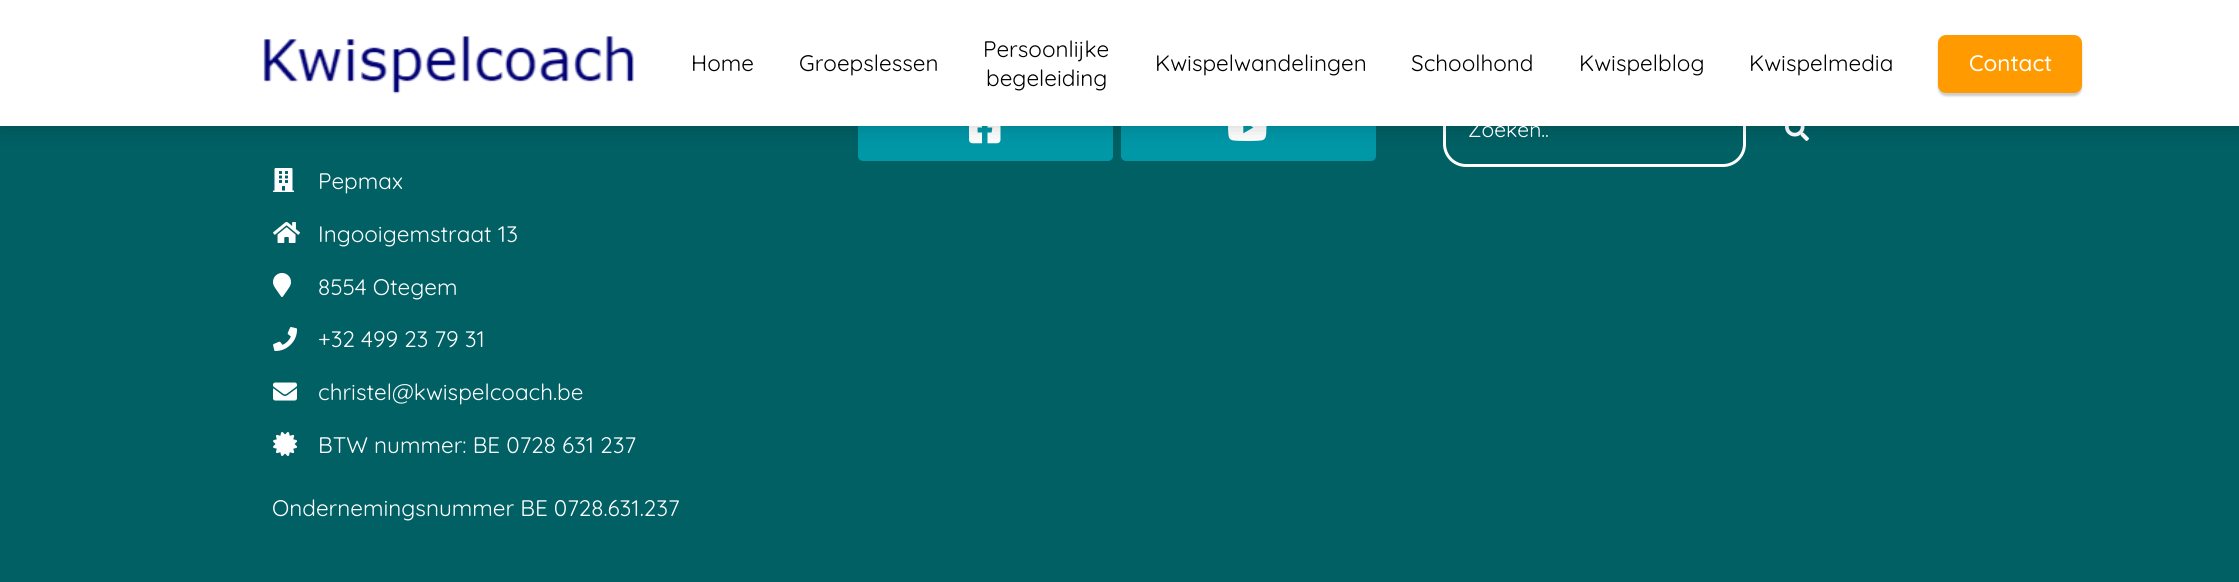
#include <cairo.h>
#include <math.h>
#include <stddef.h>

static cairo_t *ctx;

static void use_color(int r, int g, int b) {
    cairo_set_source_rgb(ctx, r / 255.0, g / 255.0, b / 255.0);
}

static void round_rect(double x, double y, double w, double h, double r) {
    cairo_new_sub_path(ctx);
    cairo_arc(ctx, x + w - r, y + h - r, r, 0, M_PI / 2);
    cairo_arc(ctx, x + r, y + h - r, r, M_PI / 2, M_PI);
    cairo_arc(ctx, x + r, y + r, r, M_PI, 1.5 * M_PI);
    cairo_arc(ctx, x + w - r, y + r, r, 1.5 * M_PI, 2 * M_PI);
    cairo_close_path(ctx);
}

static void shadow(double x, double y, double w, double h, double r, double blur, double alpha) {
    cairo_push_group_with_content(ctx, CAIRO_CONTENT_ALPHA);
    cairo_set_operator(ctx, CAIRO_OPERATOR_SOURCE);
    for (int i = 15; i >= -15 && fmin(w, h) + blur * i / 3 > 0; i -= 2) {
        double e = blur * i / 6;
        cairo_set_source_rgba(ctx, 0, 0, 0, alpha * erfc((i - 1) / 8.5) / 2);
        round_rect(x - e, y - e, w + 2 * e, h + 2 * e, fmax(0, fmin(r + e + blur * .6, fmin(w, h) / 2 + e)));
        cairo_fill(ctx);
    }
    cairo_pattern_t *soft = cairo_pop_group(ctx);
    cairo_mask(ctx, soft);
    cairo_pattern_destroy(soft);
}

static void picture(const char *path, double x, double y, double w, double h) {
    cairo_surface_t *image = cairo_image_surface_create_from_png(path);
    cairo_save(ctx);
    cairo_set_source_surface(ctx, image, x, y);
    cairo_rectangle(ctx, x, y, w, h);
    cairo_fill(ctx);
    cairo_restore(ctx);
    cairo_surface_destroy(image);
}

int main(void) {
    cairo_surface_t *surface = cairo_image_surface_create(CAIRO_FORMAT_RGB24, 2239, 582);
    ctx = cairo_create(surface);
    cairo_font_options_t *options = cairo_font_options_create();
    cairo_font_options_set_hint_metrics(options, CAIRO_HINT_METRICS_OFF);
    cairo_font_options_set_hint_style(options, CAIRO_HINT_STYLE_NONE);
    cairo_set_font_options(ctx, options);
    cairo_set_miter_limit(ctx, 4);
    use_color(0, 96, 100);
    cairo_paint(ctx);
    use_color(0, 151, 167);
    round_rect(858, 95, 255, 66, 5);
    cairo_fill(ctx);
    picture("img2.png", 969, 126, 32, 18);
    round_rect(1121, 95, 255, 66, 5);
    cairo_fill(ctx);
    picture("img3.png", 1228, 126, 39, 15);
    round_rect(1444.5, 96.5, 300, 69, 21.5);
    use_color(255, 255, 255);
    cairo_set_line_width(ctx, 3);
    cairo_stroke(ctx);
    picture("img4.png", 1785, 126, 24, 15);
    use_color(0, 0, 0);
    shadow(0, 0, 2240, 126, 0, 11, 0.2);
    use_color(255, 255, 255);
    cairo_rectangle(ctx, 0, 0, 2239, 126);
    cairo_fill(ctx);
    picture("img1.png", 263, 36, 371, 58);
    cairo_select_font_face(ctx, "Quicksand", CAIRO_FONT_SLANT_NORMAL, CAIRO_FONT_WEIGHT_NORMAL);
    cairo_set_font_size(ctx, 22.5);
    use_color(0, 0, 0);
    cairo_move_to(ctx, 691, 71);
    cairo_show_text(ctx, "Home");
    cairo_move_to(ctx, 799, 71);
    cairo_show_text(ctx, "Groepslessen");
    cairo_move_to(ctx, 983, 57);
    cairo_show_text(ctx, "Persoonlijke");
    cairo_move_to(ctx, 986, 86);
    cairo_show_text(ctx, "begeleiding");
    cairo_move_to(ctx, 1155, 71);
    cairo_show_text(ctx, "Kwispelwandelingen");
    cairo_move_to(ctx, 1411, 71);
    cairo_show_text(ctx, "Schoolhond");
    cairo_move_to(ctx, 1579, 71);
    cairo_show_text(ctx, "Kwispelblog");
    cairo_move_to(ctx, 1749, 71);
    cairo_show_text(ctx, "Kwispelmedia");
    use_color(0, 0, 0);
    shadow(1938, 38, 144, 58, 8, 1, 0.2);
    use_color(255, 155, 0);
    round_rect(1938, 35, 144, 58, 8);
    cairo_fill(ctx);
    cairo_select_font_face(ctx, "Quicksand Medium", CAIRO_FONT_SLANT_NORMAL, CAIRO_FONT_WEIGHT_NORMAL);
    use_color(255, 255, 255);
    cairo_move_to(ctx, 1969, 71);
    cairo_show_text(ctx, "Contact");
    cairo_select_font_face(ctx, "Quicksand", CAIRO_FONT_SLANT_NORMAL, CAIRO_FONT_WEIGHT_NORMAL);
    cairo_set_font_size(ctx, 21);
    cairo_move_to(ctx, 1468, 137);
    cairo_show_text(ctx, "Zoeken..");
    picture("img5.png", 273, 168, 21, 24);
    cairo_set_font_size(ctx, 22.5);
    cairo_move_to(ctx, 318, 189);
    cairo_show_text(ctx, "Pepmax");
    picture("img6.png", 273, 222, 27, 21);
    cairo_move_to(ctx, 318, 242);
    cairo_show_text(ctx, "Ingooigemstraat 13");
    picture("img7.png", 273, 273, 18, 24);
    cairo_move_to(ctx, 318, 295);
    cairo_show_text(ctx, "8554 Otegem");
    picture("img8.png", 273, 327, 25, 24);
    cairo_move_to(ctx, 318, 347);
    cairo_show_text(ctx, "+32 499 23 79 31");
    picture("img9.png", 273, 382, 24, 19);
    cairo_move_to(ctx, 318, 400);
    cairo_show_text(ctx, "christel@kwispelcoach.be");
    picture("img10.png", 273, 432, 24, 24);
    cairo_move_to(ctx, 318, 453);
    cairo_show_text(ctx, "BTW nummer: BE 0728 631 237");
    cairo_move_to(ctx, 272, 516);
    cairo_show_text(ctx, "Ondernemingsnummer BE 0728.631.237");
    cairo_surface_write_to_png(surface, "result.png");
    cairo_font_options_destroy(options);
    cairo_destroy(ctx);
    cairo_surface_destroy(surface);
    return 0;
}
